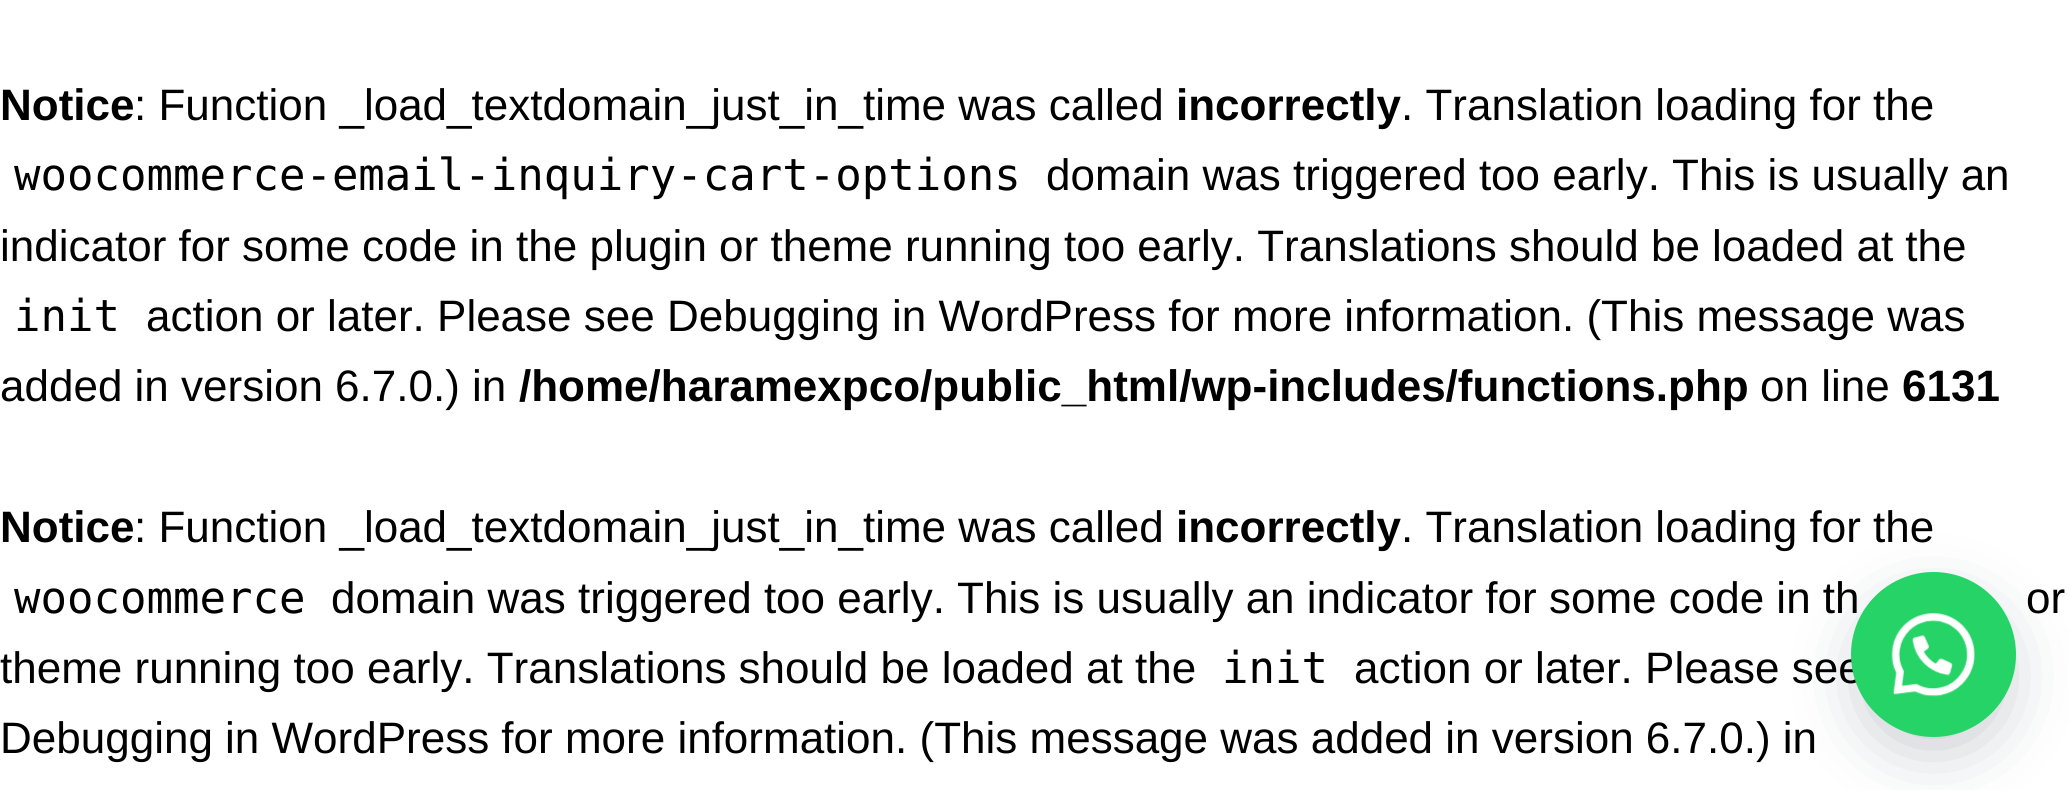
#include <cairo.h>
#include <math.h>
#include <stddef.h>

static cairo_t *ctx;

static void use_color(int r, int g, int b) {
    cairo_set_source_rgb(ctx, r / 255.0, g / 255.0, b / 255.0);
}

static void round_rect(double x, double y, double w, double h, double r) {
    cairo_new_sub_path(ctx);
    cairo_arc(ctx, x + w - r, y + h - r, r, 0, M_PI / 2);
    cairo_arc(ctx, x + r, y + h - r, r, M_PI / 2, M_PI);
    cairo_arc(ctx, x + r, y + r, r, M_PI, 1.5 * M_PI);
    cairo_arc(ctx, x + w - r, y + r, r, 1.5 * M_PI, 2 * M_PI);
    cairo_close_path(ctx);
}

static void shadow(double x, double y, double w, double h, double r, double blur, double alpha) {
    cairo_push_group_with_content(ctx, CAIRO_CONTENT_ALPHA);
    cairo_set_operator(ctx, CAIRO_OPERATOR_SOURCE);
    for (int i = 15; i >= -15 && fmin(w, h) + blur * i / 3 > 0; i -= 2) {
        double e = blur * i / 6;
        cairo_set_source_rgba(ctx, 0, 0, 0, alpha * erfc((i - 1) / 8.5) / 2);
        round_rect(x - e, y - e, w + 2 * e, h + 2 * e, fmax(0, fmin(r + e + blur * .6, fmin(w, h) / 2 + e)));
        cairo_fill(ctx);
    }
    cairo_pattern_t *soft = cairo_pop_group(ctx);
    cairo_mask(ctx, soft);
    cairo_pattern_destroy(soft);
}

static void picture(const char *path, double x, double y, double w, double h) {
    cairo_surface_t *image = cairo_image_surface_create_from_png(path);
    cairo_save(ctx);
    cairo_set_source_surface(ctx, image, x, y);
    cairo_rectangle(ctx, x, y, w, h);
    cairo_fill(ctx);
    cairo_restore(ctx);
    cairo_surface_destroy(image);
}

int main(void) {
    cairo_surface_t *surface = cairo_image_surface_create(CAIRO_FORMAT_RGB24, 2069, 790);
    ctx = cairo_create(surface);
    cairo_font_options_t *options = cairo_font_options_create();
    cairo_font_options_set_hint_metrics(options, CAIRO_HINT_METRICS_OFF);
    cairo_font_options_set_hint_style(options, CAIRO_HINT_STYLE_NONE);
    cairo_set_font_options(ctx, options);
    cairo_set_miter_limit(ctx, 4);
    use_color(255, 255, 255);
    cairo_paint(ctx);
    cairo_select_font_face(ctx, "Liberation Sans", CAIRO_FONT_SLANT_NORMAL, CAIRO_FONT_WEIGHT_BOLD);
    cairo_set_font_size(ctx, 44);
    use_color(0, 0, 0);
    cairo_move_to(ctx, 0, 120);
    cairo_show_text(ctx, "Notice");
    cairo_select_font_face(ctx, "Liberation Sans", CAIRO_FONT_SLANT_NORMAL, CAIRO_FONT_WEIGHT_NORMAL);
    cairo_move_to(ctx, 134, 120);
    cairo_show_text(ctx, ": Function _load_textdomain_just_in_time was called");
    cairo_select_font_face(ctx, "Liberation Sans", CAIRO_FONT_SLANT_NORMAL, CAIRO_FONT_WEIGHT_BOLD);
    cairo_move_to(ctx, 1176, 120);
    cairo_show_text(ctx, "incorrectly");
    cairo_select_font_face(ctx, "Liberation Sans", CAIRO_FONT_SLANT_NORMAL, CAIRO_FONT_WEIGHT_NORMAL);
    cairo_move_to(ctx, 1401, 120);
    cairo_show_text(ctx, ". Translation loading for the");
    cairo_select_font_face(ctx, "DejaVu Sans Mono", CAIRO_FONT_SLANT_NORMAL, CAIRO_FONT_WEIGHT_NORMAL);
    cairo_move_to(ctx, 14, 190);
    cairo_show_text(ctx, "woocommerce-email-inquiry-cart-options");
    cairo_select_font_face(ctx, "Liberation Sans", CAIRO_FONT_SLANT_NORMAL, CAIRO_FONT_WEIGHT_NORMAL);
    cairo_move_to(ctx, 1046, 190);
    cairo_show_text(ctx, "domain was triggered too early. This is usually an");
    cairo_move_to(ctx, 0, 261);
    cairo_show_text(ctx, "indicator for some code in the plugin or theme running too early. Translations should be loaded at the");
    cairo_select_font_face(ctx, "DejaVu Sans Mono", CAIRO_FONT_SLANT_NORMAL, CAIRO_FONT_WEIGHT_NORMAL);
    cairo_move_to(ctx, 14, 331);
    cairo_show_text(ctx, "init");
    cairo_select_font_face(ctx, "Liberation Sans", CAIRO_FONT_SLANT_NORMAL, CAIRO_FONT_WEIGHT_NORMAL);
    cairo_move_to(ctx, 146, 331);
    cairo_show_text(ctx, "action or later. Please see Debugging in WordPress for more information. (This message was");
    cairo_move_to(ctx, 0, 401);
    cairo_show_text(ctx, "added in version 6.7.0.) in");
    cairo_select_font_face(ctx, "Liberation Sans", CAIRO_FONT_SLANT_NORMAL, CAIRO_FONT_WEIGHT_BOLD);
    cairo_move_to(ctx, 519, 401);
    cairo_show_text(ctx, "/home/haramexpco/public_html/wp-includes/functions.php");
    cairo_select_font_face(ctx, "Liberation Sans", CAIRO_FONT_SLANT_NORMAL, CAIRO_FONT_WEIGHT_NORMAL);
    cairo_move_to(ctx, 1760, 401);
    cairo_show_text(ctx, "on line");
    cairo_select_font_face(ctx, "Liberation Sans", CAIRO_FONT_SLANT_NORMAL, CAIRO_FONT_WEIGHT_BOLD);
    cairo_move_to(ctx, 1902, 401);
    cairo_show_text(ctx, "6131");
    cairo_move_to(ctx, 0, 542);
    cairo_show_text(ctx, "Notice");
    cairo_select_font_face(ctx, "Liberation Sans", CAIRO_FONT_SLANT_NORMAL, CAIRO_FONT_WEIGHT_NORMAL);
    cairo_move_to(ctx, 134, 542);
    cairo_show_text(ctx, ": Function _load_textdomain_just_in_time was called");
    cairo_select_font_face(ctx, "Liberation Sans", CAIRO_FONT_SLANT_NORMAL, CAIRO_FONT_WEIGHT_BOLD);
    cairo_move_to(ctx, 1176, 542);
    cairo_show_text(ctx, "incorrectly");
    use_color(45, 62, 79);
    shadow(1865, 608, 137, 137, 68.5, 34.5, 0.3);
    cairo_select_font_face(ctx, "Liberation Sans", CAIRO_FONT_SLANT_NORMAL, CAIRO_FONT_WEIGHT_NORMAL);
    use_color(0, 0, 0);
    cairo_move_to(ctx, 331, 613);
    cairo_show_text(ctx, "domain was triggered too early. This is usually an indicator for some code in th");
    cairo_move_to(ctx, 1354, 683);
    cairo_show_text(ctx, "action or later. Please see");
    use_color(37, 211, 102);
    cairo_new_path(ctx);
    cairo_arc(ctx, 1933.5, 654.5, 82.5, 0, 2 * M_PI);
    cairo_fill(ctx);
    picture("img1.png", 1891, 613, 84, 84);
    use_color(0, 0, 0);
    cairo_move_to(ctx, 1401, 542);
    cairo_show_text(ctx, ". Translation loading for the");
    cairo_select_font_face(ctx, "DejaVu Sans Mono", CAIRO_FONT_SLANT_NORMAL, CAIRO_FONT_WEIGHT_NORMAL);
    cairo_move_to(ctx, 14, 613);
    cairo_show_text(ctx, "woocommerce");
    cairo_select_font_face(ctx, "Liberation Sans", CAIRO_FONT_SLANT_NORMAL, CAIRO_FONT_WEIGHT_NORMAL);
    cairo_move_to(ctx, 2026, 613);
    cairo_show_text(ctx, "or");
    cairo_move_to(ctx, 0, 683);
    cairo_show_text(ctx, "theme running too early. Translations should be loaded at the");
    cairo_select_font_face(ctx, "DejaVu Sans Mono", CAIRO_FONT_SLANT_NORMAL, CAIRO_FONT_WEIGHT_NORMAL);
    cairo_move_to(ctx, 1222, 683);
    cairo_show_text(ctx, "init");
    cairo_select_font_face(ctx, "Liberation Sans", CAIRO_FONT_SLANT_NORMAL, CAIRO_FONT_WEIGHT_NORMAL);
    cairo_move_to(ctx, 0, 753);
    cairo_show_text(ctx, "Debugging in WordPress for more information. (This message was added in version 6.7.0.) in");
    cairo_surface_write_to_png(surface, "result.png");
    cairo_font_options_destroy(options);
    cairo_destroy(ctx);
    cairo_surface_destroy(surface);
    return 0;
}
